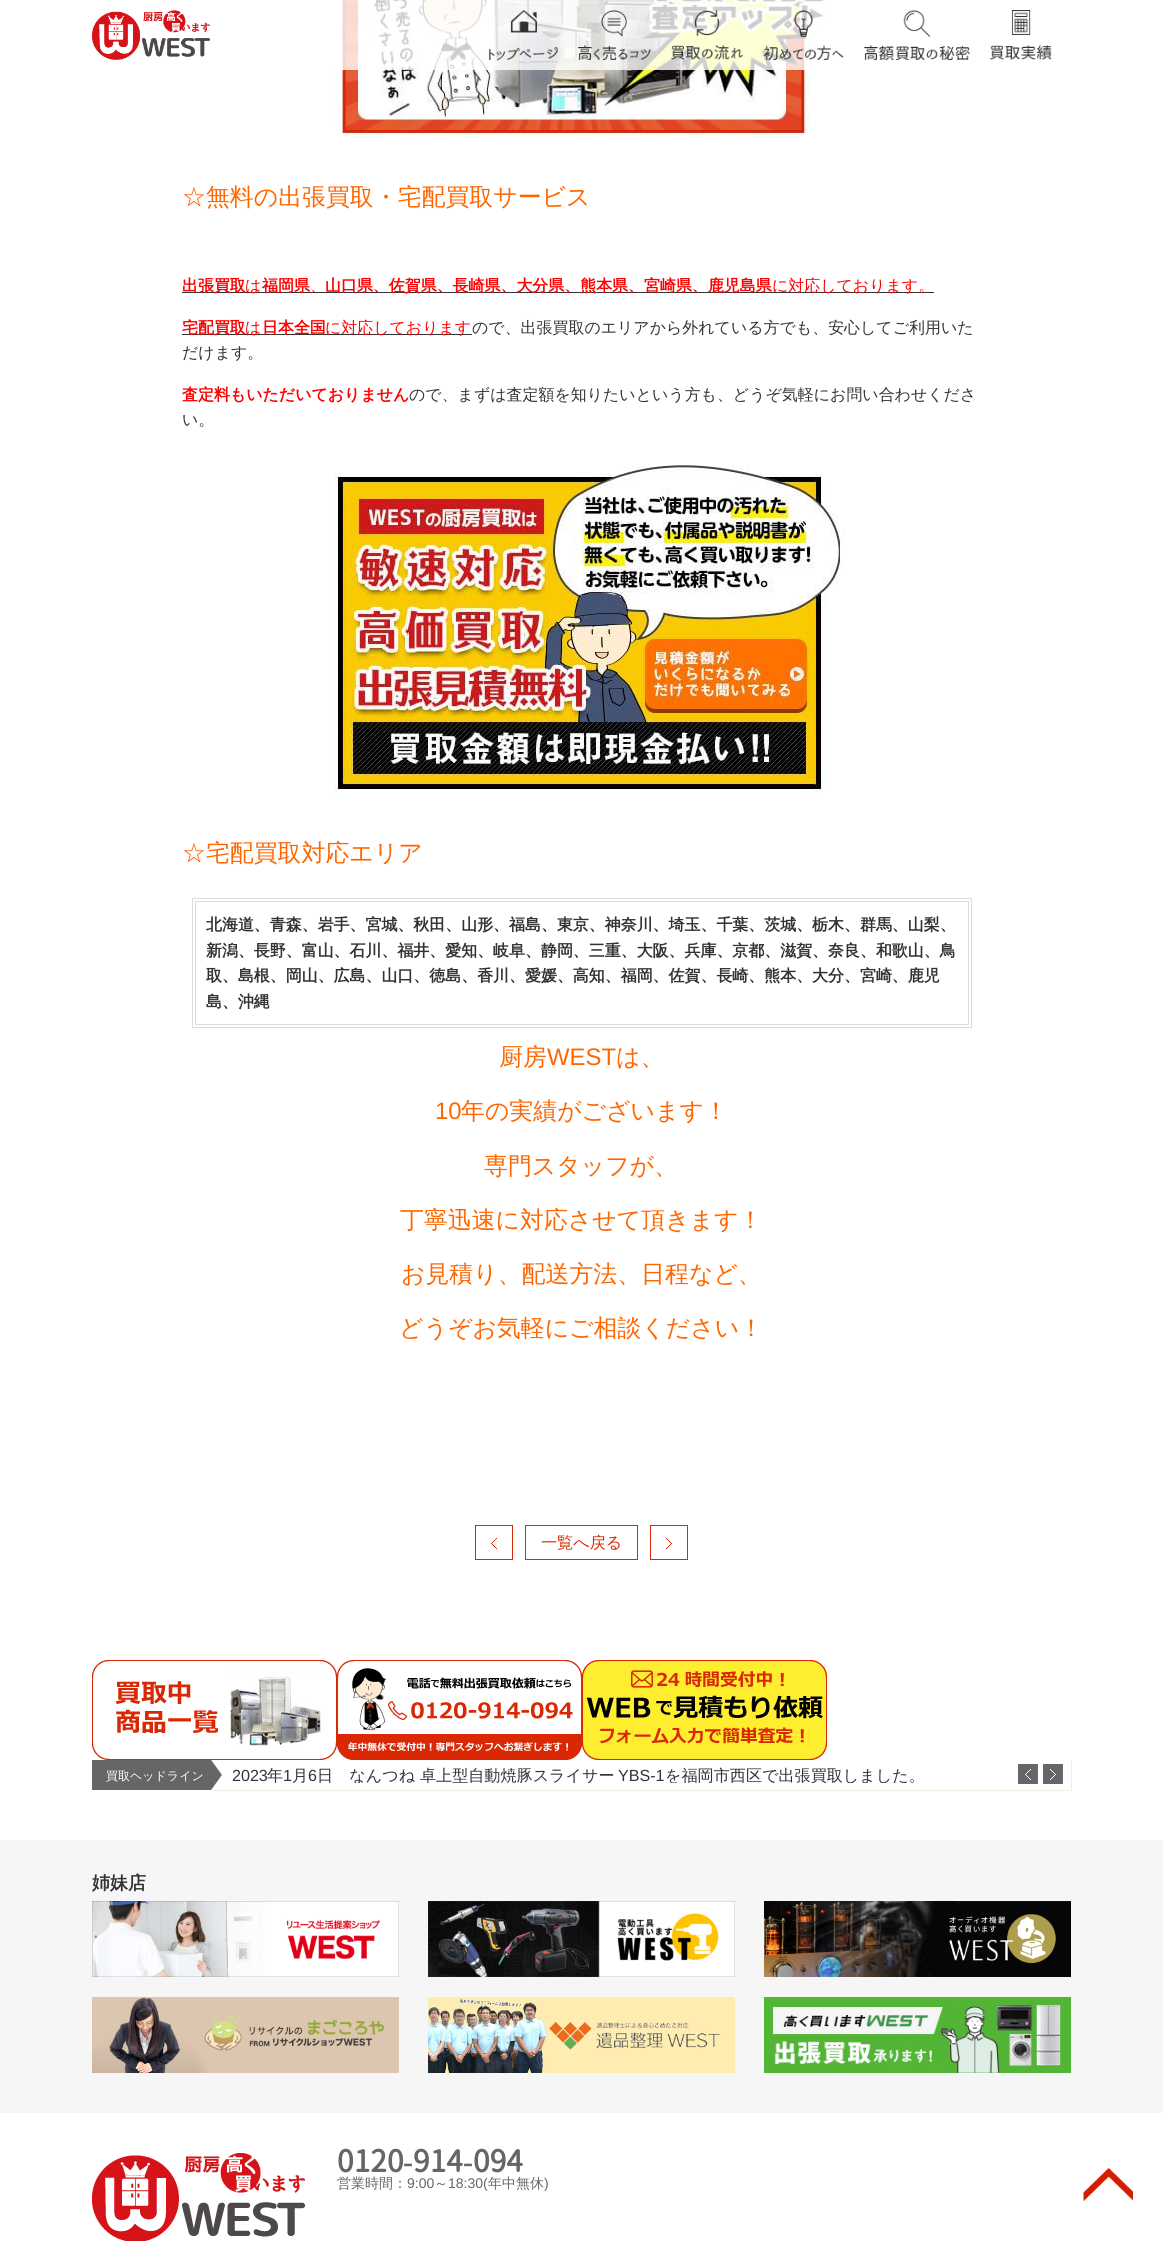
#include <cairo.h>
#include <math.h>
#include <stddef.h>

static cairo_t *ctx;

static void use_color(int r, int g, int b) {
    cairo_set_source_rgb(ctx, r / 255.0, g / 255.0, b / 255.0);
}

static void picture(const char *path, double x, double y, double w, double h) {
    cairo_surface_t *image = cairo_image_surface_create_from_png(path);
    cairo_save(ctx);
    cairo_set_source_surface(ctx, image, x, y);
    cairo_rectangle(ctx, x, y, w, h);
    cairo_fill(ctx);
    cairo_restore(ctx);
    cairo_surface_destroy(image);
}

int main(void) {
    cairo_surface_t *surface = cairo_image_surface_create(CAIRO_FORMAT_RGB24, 1163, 2241);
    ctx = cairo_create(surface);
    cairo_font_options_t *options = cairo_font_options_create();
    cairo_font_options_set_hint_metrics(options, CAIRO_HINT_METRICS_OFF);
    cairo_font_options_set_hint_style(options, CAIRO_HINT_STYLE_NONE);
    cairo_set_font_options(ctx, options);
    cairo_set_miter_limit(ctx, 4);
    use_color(255, 255, 255);
    cairo_paint(ctx);
    picture("img8.png", 335, 0, 490, 135);
    cairo_set_source_rgba(ctx, 1, 1, 1, 0.8);
    cairo_rectangle(ctx, 335, 0, 489, 70);
    cairo_fill(ctx);
    picture("img1.png", 92, 10, 118, 50);
    picture("img2.png", 489, 10, 69, 50);
    picture("img3.png", 578, 10, 73, 50);
    picture("img4.png", 671, 10, 72, 50);
    picture("img5.png", 763, 10, 81, 50);
    picture("img6.png", 864, 10, 106, 50);
    picture("img7.png", 990, 10, 62, 50);
    cairo_select_font_face(ctx, "WenQuanYi Zen Hei Medium", CAIRO_FONT_SLANT_NORMAL, CAIRO_FONT_WEIGHT_NORMAL);
    cairo_set_font_size(ctx, 23.9);
    use_color(255, 102, 0);
    cairo_move_to(ctx, 182, 205);
    cairo_show_text(ctx, "☆無料の出張買取・宅配買取サービス");
    use_color(51, 51, 51);
    cairo_rectangle(ctx, 182, 292, 752, 1);
    cairo_fill(ctx);
    cairo_select_font_face(ctx, "WenQuanYi Zen Hei", CAIRO_FONT_SLANT_NORMAL, CAIRO_FONT_WEIGHT_BOLD);
    cairo_set_font_size(ctx, 15.95);
    use_color(255, 0, 0);
    cairo_move_to(ctx, 182, 291);
    cairo_show_text(ctx, "出張買取");
    cairo_select_font_face(ctx, "WenQuanYi Zen Hei Medium", CAIRO_FONT_SLANT_NORMAL, CAIRO_FONT_WEIGHT_NORMAL);
    cairo_move_to(ctx, 245, 291);
    cairo_show_text(ctx, "は");
    cairo_select_font_face(ctx, "WenQuanYi Zen Hei", CAIRO_FONT_SLANT_NORMAL, CAIRO_FONT_WEIGHT_BOLD);
    cairo_move_to(ctx, 262, 291);
    cairo_show_text(ctx, "福岡県");
    cairo_select_font_face(ctx, "WenQuanYi Zen Hei Medium", CAIRO_FONT_SLANT_NORMAL, CAIRO_FONT_WEIGHT_NORMAL);
    cairo_move_to(ctx, 310, 291);
    cairo_show_text(ctx, "、");
    cairo_select_font_face(ctx, "WenQuanYi Zen Hei", CAIRO_FONT_SLANT_NORMAL, CAIRO_FONT_WEIGHT_BOLD);
    cairo_move_to(ctx, 325, 291);
    cairo_show_text(ctx, "山口県、佐賀県、長崎県、大分県、熊本県、宮崎県、鹿児島県");
    cairo_select_font_face(ctx, "WenQuanYi Zen Hei Medium", CAIRO_FONT_SLANT_NORMAL, CAIRO_FONT_WEIGHT_NORMAL);
    cairo_move_to(ctx, 772, 291);
    cairo_show_text(ctx, "に対応しております。");
    use_color(51, 51, 51);
    cairo_rectangle(ctx, 182, 334, 290, 1);
    cairo_fill(ctx);
    cairo_select_font_face(ctx, "WenQuanYi Zen Hei", CAIRO_FONT_SLANT_NORMAL, CAIRO_FONT_WEIGHT_BOLD);
    use_color(255, 0, 0);
    cairo_move_to(ctx, 182, 333);
    cairo_show_text(ctx, "宅配買取");
    cairo_select_font_face(ctx, "WenQuanYi Zen Hei Medium", CAIRO_FONT_SLANT_NORMAL, CAIRO_FONT_WEIGHT_NORMAL);
    cairo_move_to(ctx, 245, 333);
    cairo_show_text(ctx, "は");
    cairo_select_font_face(ctx, "WenQuanYi Zen Hei", CAIRO_FONT_SLANT_NORMAL, CAIRO_FONT_WEIGHT_BOLD);
    cairo_move_to(ctx, 262, 333);
    cairo_show_text(ctx, "日本全国");
    cairo_select_font_face(ctx, "WenQuanYi Zen Hei Medium", CAIRO_FONT_SLANT_NORMAL, CAIRO_FONT_WEIGHT_NORMAL);
    cairo_move_to(ctx, 325, 333);
    cairo_show_text(ctx, "に対応しております");
    use_color(51, 51, 51);
    cairo_move_to(ctx, 472, 333);
    cairo_show_text(ctx, "ので、出張買取のエリアから外れている方でも、安心してご利用いた");
    cairo_move_to(ctx, 182, 358);
    cairo_show_text(ctx, "だけます。");
    cairo_select_font_face(ctx, "WenQuanYi Zen Hei", CAIRO_FONT_SLANT_NORMAL, CAIRO_FONT_WEIGHT_BOLD);
    use_color(255, 0, 0);
    cairo_move_to(ctx, 182, 400);
    cairo_show_text(ctx, "査定料もいただいておりません");
    cairo_select_font_face(ctx, "WenQuanYi Zen Hei Medium", CAIRO_FONT_SLANT_NORMAL, CAIRO_FONT_WEIGHT_NORMAL);
    use_color(51, 51, 51);
    cairo_move_to(ctx, 409, 400);
    cairo_show_text(ctx, "ので、まずは査定額を知りたいという方も、どうぞ気軽にお問い合わせくださ");
    cairo_move_to(ctx, 182, 425);
    cairo_show_text(ctx, "い。");
    picture("img9.png", 334, 465, 512, 328);
    cairo_set_font_size(ctx, 23.9);
    use_color(255, 102, 0);
    cairo_move_to(ctx, 182, 861);
    cairo_show_text(ctx, "☆宅配買取対応エリア");
    cairo_rectangle(ctx, 192.5, 898.5, 779, 129);
    use_color(221, 221, 221);
    cairo_set_line_width(ctx, 1);
    cairo_stroke(ctx);
    cairo_rectangle(ctx, 195.5, 901.5, 773, 123);
    cairo_stroke(ctx);
    cairo_select_font_face(ctx, "WenQuanYi Zen Hei", CAIRO_FONT_SLANT_NORMAL, CAIRO_FONT_WEIGHT_BOLD);
    cairo_set_font_size(ctx, 15.95);
    use_color(51, 51, 51);
    cairo_move_to(ctx, 206, 930);
    cairo_show_text(ctx, "北海道、青森、岩手、宮城、秋田、山形、福島、東京、神奈川、埼玉、千葉、茨城、栃木、群馬、山梨、");
    cairo_move_to(ctx, 206, 956);
    cairo_show_text(ctx, "新潟、長野、富山、石川、福井、愛知、岐阜、静岡、三重、大阪、兵庫、京都、滋賀、奈良、和歌山、鳥");
    cairo_move_to(ctx, 206, 981);
    cairo_show_text(ctx, "取、島根、岡山、広島、山口、徳島、香川、愛媛、高知、福岡、佐賀、長崎、熊本、大分、宮崎、鹿児");
    cairo_move_to(ctx, 206, 1007);
    cairo_show_text(ctx, "島、沖縄");
    cairo_select_font_face(ctx, "WenQuanYi Zen Hei Medium", CAIRO_FONT_SLANT_NORMAL, CAIRO_FONT_WEIGHT_NORMAL);
    cairo_set_font_size(ctx, 23.9);
    use_color(255, 102, 0);
    cairo_move_to(ctx, 499, 1065);
    cairo_show_text(ctx, "厨房");
    cairo_select_font_face(ctx, "Liberation Sans", CAIRO_FONT_SLANT_NORMAL, CAIRO_FONT_WEIGHT_NORMAL);
    cairo_move_to(ctx, 547, 1065);
    cairo_show_text(ctx, "WEST");
    cairo_select_font_face(ctx, "WenQuanYi Zen Hei Medium", CAIRO_FONT_SLANT_NORMAL, CAIRO_FONT_WEIGHT_NORMAL);
    cairo_move_to(ctx, 616, 1065);
    cairo_show_text(ctx, "は、");
    cairo_select_font_face(ctx, "Liberation Sans", CAIRO_FONT_SLANT_NORMAL, CAIRO_FONT_WEIGHT_NORMAL);
    cairo_move_to(ctx, 435, 1119);
    cairo_show_text(ctx, "10");
    cairo_select_font_face(ctx, "WenQuanYi Zen Hei Medium", CAIRO_FONT_SLANT_NORMAL, CAIRO_FONT_WEIGHT_NORMAL);
    cairo_move_to(ctx, 461, 1119);
    cairo_show_text(ctx, "年の実績がございます！");
    cairo_move_to(ctx, 484, 1174);
    cairo_show_text(ctx, "専門スタッフが、");
    cairo_move_to(ctx, 400, 1228);
    cairo_show_text(ctx, "丁寧迅速に対応させて頂きます！");
    cairo_move_to(ctx, 401, 1282);
    cairo_show_text(ctx, "お見積り、配送方法、日程など、");
    cairo_move_to(ctx, 399, 1336);
    cairo_show_text(ctx, "どうぞお気軽にご相談ください！");
    cairo_rectangle(ctx, 475.5, 1525.5, 37, 34);
    use_color(218, 40, 5);
    cairo_stroke(ctx);
    picture("img10.png", 491, 1538, 6, 11);
    cairo_rectangle(ctx, 525.5, 1525.5, 112, 34);
    cairo_stroke(ctx);
    cairo_set_font_size(ctx, 16.1);
    cairo_move_to(ctx, 541, 1548);
    cairo_show_text(ctx, "一覧へ戻る");
    cairo_rectangle(ctx, 650.5, 1525.5, 37, 34);
    cairo_stroke(ctx);
    picture("img11.png", 666, 1538, 6, 11);
    picture("img12.png", 92, 1660, 245, 100);
    picture("img13.png", 337, 1660, 245, 100);
    picture("img14.png", 582, 1660, 245, 100);
    use_color(102, 102, 102);
    cairo_rectangle(ctx, 92, 1760, 119, 30);
    cairo_fill(ctx);
    cairo_set_font_size(ctx, 12);
    use_color(255, 255, 255);
    cairo_move_to(ctx, 106, 1780);
    cairo_show_text(ctx, "買取ヘッドライン");
    picture("img15.png", 211, 1760, 11, 30);
    use_color(245, 237, 225);
    cairo_rectangle(ctx, 1071, 1760, 1, 31);
    cairo_fill(ctx);
    cairo_rectangle(ctx, 212, 1790, 860, 1);
    cairo_fill(ctx);
    cairo_select_font_face(ctx, "Liberation Sans", CAIRO_FONT_SLANT_NORMAL, CAIRO_FONT_WEIGHT_NORMAL);
    cairo_set_font_size(ctx, 16.1);
    use_color(51, 51, 51);
    cairo_move_to(ctx, 232, 1781);
    cairo_show_text(ctx, "2023");
    cairo_select_font_face(ctx, "WenQuanYi Zen Hei Medium", CAIRO_FONT_SLANT_NORMAL, CAIRO_FONT_WEIGHT_NORMAL);
    cairo_move_to(ctx, 267, 1781);
    cairo_show_text(ctx, "年");
    cairo_select_font_face(ctx, "Liberation Sans", CAIRO_FONT_SLANT_NORMAL, CAIRO_FONT_WEIGHT_NORMAL);
    cairo_move_to(ctx, 283, 1781);
    cairo_show_text(ctx, "1");
    cairo_select_font_face(ctx, "WenQuanYi Zen Hei Medium", CAIRO_FONT_SLANT_NORMAL, CAIRO_FONT_WEIGHT_NORMAL);
    cairo_move_to(ctx, 292, 1781);
    cairo_show_text(ctx, "月");
    cairo_select_font_face(ctx, "Liberation Sans", CAIRO_FONT_SLANT_NORMAL, CAIRO_FONT_WEIGHT_NORMAL);
    cairo_move_to(ctx, 308, 1781);
    cairo_show_text(ctx, "6");
    cairo_save(ctx);
    cairo_rectangle(ctx, 232, 1767, 839, 16);
    cairo_clip(ctx);
    cairo_select_font_face(ctx, "WenQuanYi Zen Hei Medium", CAIRO_FONT_SLANT_NORMAL, CAIRO_FONT_WEIGHT_NORMAL);
    cairo_move_to(ctx, 317, 1781);
    cairo_show_text(ctx, "日　なんつね 卓上型自動焼豚スライサー");
    cairo_restore(ctx);
    cairo_move_to(ctx, 618, 1781);
    cairo_show_text(ctx, "YBS-1");
    cairo_save(ctx);
    cairo_rectangle(ctx, 232, 1767, 839, 16);
    cairo_clip(ctx);
    cairo_select_font_face(ctx, "WenQuanYi Zen Hei Medium", CAIRO_FONT_SLANT_NORMAL, CAIRO_FONT_WEIGHT_NORMAL);
    cairo_move_to(ctx, 665, 1781);
    cairo_show_text(ctx, "を福岡市西区で出張買取しました。");
    cairo_restore(ctx);
    picture("img16.png", 1018, 1764, 20, 20);
    picture("img17.png", 1043, 1764, 20, 20);
    use_color(246, 246, 246);
    cairo_rectangle(ctx, 0, 1840, 1163, 273);
    cairo_fill(ctx);
    cairo_select_font_face(ctx, "WenQuanYi Zen Hei", CAIRO_FONT_SLANT_NORMAL, CAIRO_FONT_WEIGHT_BOLD);
    cairo_set_font_size(ctx, 18);
    use_color(51, 51, 51);
    cairo_move_to(ctx, 92, 1889);
    cairo_show_text(ctx, "姉妹店");
    picture("img18.png", 92, 1901, 307, 76);
    picture("img19.png", 428, 1901, 307, 76);
    picture("img20.png", 764, 1901, 307, 76);
    picture("img21.png", 92, 1997, 307, 76);
    picture("img22.png", 428, 1997, 307, 76);
    picture("img23.png", 764, 1997, 307, 76);
    picture("img24.png", 92, 2153, 213, 88);
    cairo_select_font_face(ctx, "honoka", CAIRO_FONT_SLANT_NORMAL, CAIRO_FONT_WEIGHT_BOLD);
    cairo_set_font_size(ctx, 30);
    use_color(102, 102, 102);
    cairo_move_to(ctx, 337, 2172);
    cairo_show_text(ctx, "0120");
    cairo_select_font_face(ctx, "Liberation Serif", CAIRO_FONT_SLANT_NORMAL, CAIRO_FONT_WEIGHT_BOLD);
    cairo_move_to(ctx, 403, 2172);
    cairo_show_text(ctx, "-");
    cairo_select_font_face(ctx, "honoka", CAIRO_FONT_SLANT_NORMAL, CAIRO_FONT_WEIGHT_BOLD);
    cairo_move_to(ctx, 413, 2172);
    cairo_show_text(ctx, "914");
    cairo_select_font_face(ctx, "Liberation Serif", CAIRO_FONT_SLANT_NORMAL, CAIRO_FONT_WEIGHT_BOLD);
    cairo_move_to(ctx, 463, 2172);
    cairo_show_text(ctx, "-");
    cairo_select_font_face(ctx, "honoka", CAIRO_FONT_SLANT_NORMAL, CAIRO_FONT_WEIGHT_BOLD);
    cairo_move_to(ctx, 473, 2172);
    cairo_show_text(ctx, "094");
    cairo_select_font_face(ctx, "WenQuanYi Zen Hei Medium", CAIRO_FONT_SLANT_NORMAL, CAIRO_FONT_WEIGHT_NORMAL);
    cairo_set_font_size(ctx, 14);
    cairo_move_to(ctx, 337, 2188);
    cairo_show_text(ctx, "営業時間：");
    cairo_select_font_face(ctx, "Liberation Sans", CAIRO_FONT_SLANT_NORMAL, CAIRO_FONT_WEIGHT_NORMAL);
    cairo_move_to(ctx, 407, 2188);
    cairo_show_text(ctx, "9:00");
    cairo_select_font_face(ctx, "WenQuanYi Zen Hei Medium", CAIRO_FONT_SLANT_NORMAL, CAIRO_FONT_WEIGHT_NORMAL);
    cairo_move_to(ctx, 434, 2188);
    cairo_show_text(ctx, "～");
    cairo_select_font_face(ctx, "Liberation Sans", CAIRO_FONT_SLANT_NORMAL, CAIRO_FONT_WEIGHT_NORMAL);
    cairo_move_to(ctx, 448, 2188);
    cairo_show_text(ctx, "18:30(");
    cairo_select_font_face(ctx, "WenQuanYi Zen Hei Medium", CAIRO_FONT_SLANT_NORMAL, CAIRO_FONT_WEIGHT_NORMAL);
    cairo_move_to(ctx, 488, 2188);
    cairo_show_text(ctx, "年中無休");
    cairo_select_font_face(ctx, "Liberation Sans", CAIRO_FONT_SLANT_NORMAL, CAIRO_FONT_WEIGHT_NORMAL);
    cairo_move_to(ctx, 544, 2188);
    cairo_show_text(ctx, ")");
    picture("img25.png", 1083, 2167, 50, 34);
    cairo_surface_write_to_png(surface, "result.png");
    cairo_font_options_destroy(options);
    cairo_destroy(ctx);
    cairo_surface_destroy(surface);
    return 0;
}
